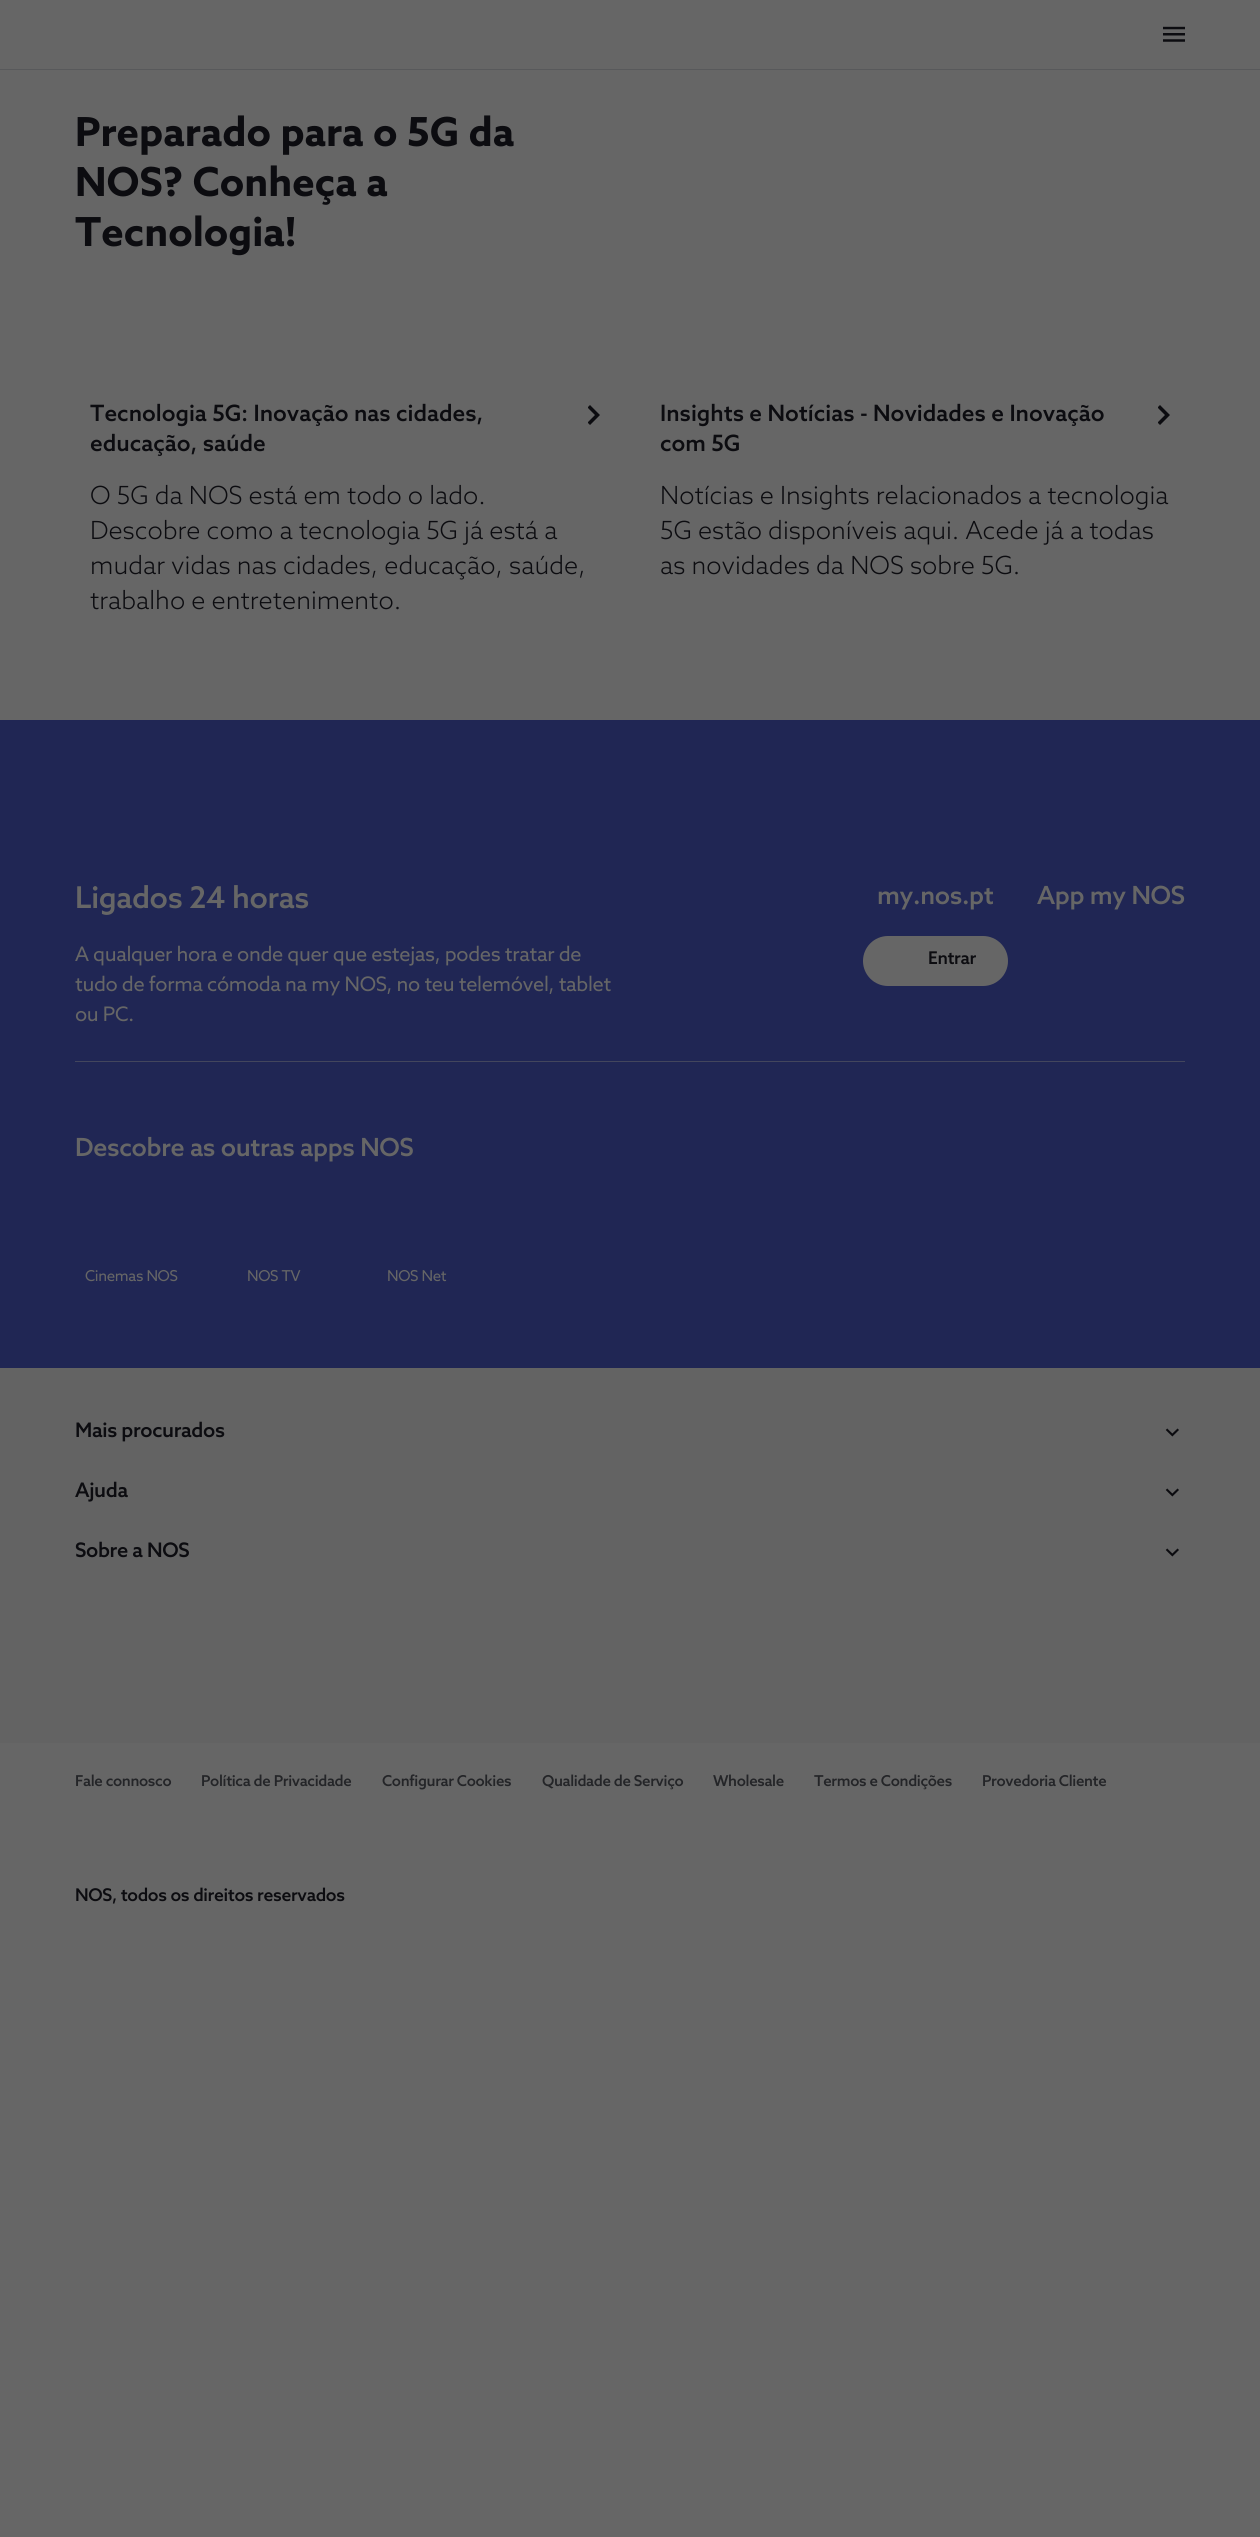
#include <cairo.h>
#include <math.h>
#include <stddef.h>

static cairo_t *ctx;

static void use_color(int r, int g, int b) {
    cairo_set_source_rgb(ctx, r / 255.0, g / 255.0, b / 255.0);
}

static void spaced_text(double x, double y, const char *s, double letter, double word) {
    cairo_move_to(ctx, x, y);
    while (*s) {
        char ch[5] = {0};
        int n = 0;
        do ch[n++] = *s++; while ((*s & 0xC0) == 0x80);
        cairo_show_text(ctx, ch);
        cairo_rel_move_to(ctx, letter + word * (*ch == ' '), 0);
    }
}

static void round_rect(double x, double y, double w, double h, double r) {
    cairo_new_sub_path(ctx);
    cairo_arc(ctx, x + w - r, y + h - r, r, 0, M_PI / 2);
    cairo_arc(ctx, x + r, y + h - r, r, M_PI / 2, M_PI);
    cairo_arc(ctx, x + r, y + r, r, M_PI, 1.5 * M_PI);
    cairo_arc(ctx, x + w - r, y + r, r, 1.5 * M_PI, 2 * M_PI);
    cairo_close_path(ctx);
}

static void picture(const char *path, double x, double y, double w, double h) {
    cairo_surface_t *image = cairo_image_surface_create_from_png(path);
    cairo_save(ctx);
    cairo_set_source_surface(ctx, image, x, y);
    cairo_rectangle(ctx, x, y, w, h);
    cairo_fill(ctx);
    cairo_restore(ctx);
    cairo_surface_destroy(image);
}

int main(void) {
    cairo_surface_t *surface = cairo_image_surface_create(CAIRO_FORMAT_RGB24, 1260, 2537);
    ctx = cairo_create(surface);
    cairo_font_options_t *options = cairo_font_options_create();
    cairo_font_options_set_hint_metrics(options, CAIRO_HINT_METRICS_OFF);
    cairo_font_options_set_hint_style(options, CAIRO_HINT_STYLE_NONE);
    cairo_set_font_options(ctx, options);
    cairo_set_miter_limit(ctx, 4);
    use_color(102, 102, 102);
    cairo_paint(ctx);
    use_color(88, 89, 91);
    cairo_rectangle(ctx, 0, 69, 1260, 1);
    cairo_fill(ctx);
    picture("img1.png", 1163, 26, 22, 16);
    cairo_select_font_face(ctx, "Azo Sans", CAIRO_FONT_SLANT_NORMAL, CAIRO_FONT_WEIGHT_BOLD);
    cairo_set_font_size(ctx, 40);
    use_color(12, 12, 16);
    cairo_move_to(ctx, 75, 146);
    cairo_show_text(ctx, "Preparado para o 5G da");
    cairo_move_to(ctx, 75, 196);
    cairo_show_text(ctx, "NOS? Conheça a");
    cairo_move_to(ctx, 75, 246);
    cairo_show_text(ctx, "Tecnologia!");
    cairo_select_font_face(ctx, "Azo Sans Medium", CAIRO_FONT_SLANT_NORMAL, CAIRO_FONT_WEIGHT_NORMAL);
    cairo_set_font_size(ctx, 22.5);
    cairo_move_to(ctx, 90, 421);
    cairo_show_text(ctx, "Tecnologia 5G: Inovação nas cidades,");
    cairo_move_to(ctx, 90, 451);
    cairo_show_text(ctx, "educação, saúde");
    picture("img2.png", 588, 405, 12, 20);
    cairo_select_font_face(ctx, "Azo Sans Light", CAIRO_FONT_SLANT_NORMAL, CAIRO_FONT_WEIGHT_NORMAL);
    cairo_set_font_size(ctx, 25);
    cairo_move_to(ctx, 90, 504);
    cairo_show_text(ctx, "O 5G da NOS está em todo o lado.");
    cairo_move_to(ctx, 90, 539);
    cairo_show_text(ctx, "Descobre como a tecnologia 5G já está a");
    cairo_move_to(ctx, 90, 574);
    cairo_show_text(ctx, "mudar vidas nas cidades, educação, saúde,");
    cairo_move_to(ctx, 90, 609);
    cairo_show_text(ctx, "trabalho e entretenimento.");
    cairo_select_font_face(ctx, "Azo Sans Medium", CAIRO_FONT_SLANT_NORMAL, CAIRO_FONT_WEIGHT_NORMAL);
    cairo_set_font_size(ctx, 22.5);
    cairo_move_to(ctx, 660, 421);
    cairo_show_text(ctx, "Insights e Notícias - Novidades e Inovação");
    cairo_move_to(ctx, 660, 451);
    cairo_show_text(ctx, "com 5G");
    picture("img2.png", 1158, 405, 12, 20);
    cairo_select_font_face(ctx, "Azo Sans Light", CAIRO_FONT_SLANT_NORMAL, CAIRO_FONT_WEIGHT_NORMAL);
    cairo_set_font_size(ctx, 25);
    cairo_move_to(ctx, 660, 504);
    cairo_show_text(ctx, "Notícias e Insights relacionados a tecnologia");
    cairo_move_to(ctx, 660, 539);
    cairo_show_text(ctx, "5G estão disponíveis aqui. Acede já a todas");
    cairo_move_to(ctx, 660, 574);
    cairo_show_text(ctx, "as novidades da NOS sobre 5G.");
    use_color(32, 38, 84);
    cairo_rectangle(ctx, 0, 720, 1260, 648);
    cairo_fill(ctx);
    use_color(67, 70, 93);
    cairo_rectangle(ctx, 75, 1061, 1110, 1);
    cairo_fill(ctx);
    cairo_select_font_face(ctx, "Azo Sans Medium", CAIRO_FONT_SLANT_NORMAL, CAIRO_FONT_WEIGHT_NORMAL);
    cairo_set_font_size(ctx, 30);
    use_color(102, 102, 102);
    spaced_text(75, 908, "Ligados 24 horas", -0.35, 0);
    cairo_select_font_face(ctx, "Azo Sans", CAIRO_FONT_SLANT_NORMAL, CAIRO_FONT_WEIGHT_NORMAL);
    cairo_set_font_size(ctx, 20);
    spaced_text(75, 961, "A qualquer hora e onde quer que estejas, podes tratar de", -0.35, 0);
    spaced_text(75, 991, "tudo de forma cómoda na my NOS, no teu telemóvel, tablet", -0.35, 0);
    spaced_text(75, 1021, "ou PC.", -0.35, 0);
    cairo_select_font_face(ctx, "Azo Sans Medium", CAIRO_FONT_SLANT_NORMAL, CAIRO_FONT_WEIGHT_NORMAL);
    cairo_set_font_size(ctx, 25);
    spaced_text(877, 904, "my.nos.pt", -0.35, 0);
    round_rect(863, 936, 145, 50, 25);
    cairo_fill(ctx);
    cairo_set_font_size(ctx, 17.5);
    use_color(12, 12, 16);
    spaced_text(928, 964, "Entrar", -0.35, 0);
    cairo_set_font_size(ctx, 25);
    use_color(102, 102, 102);
    spaced_text(1037, 904, "App my NOS", -0.35, 0);
    spaced_text(75, 1156, "Descobre as outras apps NOS", -0.35, 0);
    cairo_select_font_face(ctx, "Azo Sans", CAIRO_FONT_SLANT_NORMAL, CAIRO_FONT_WEIGHT_NORMAL);
    cairo_set_font_size(ctx, 15);
    spaced_text(85, 1281, "Cinemas NOS", -0.35, 0);
    spaced_text(247, 1281, "NOS TV", -0.35, 0);
    spaced_text(387, 1281, "NOS Net", -0.35, 0);
    use_color(99, 99, 99);
    cairo_rectangle(ctx, 0, 1368, 1260, 375);
    cairo_fill(ctx);
    cairo_select_font_face(ctx, "Azo Sans Medium", CAIRO_FONT_SLANT_NORMAL, CAIRO_FONT_WEIGHT_NORMAL);
    cairo_set_font_size(ctx, 20);
    use_color(12, 12, 16);
    spaced_text(75, 1437, "Mais procurados", -0.35, 0);
    picture("img3.png", 1165, 1428, 14, 9);
    spaced_text(75, 1497, "Ajuda", -0.35, 0);
    picture("img3.png", 1165, 1488, 14, 9);
    spaced_text(75, 1557, "Sobre a NOS", -0.35, 0);
    picture("img3.png", 1165, 1548, 14, 9);
    cairo_set_font_size(ctx, 15);
    use_color(36, 37, 40);
    spaced_text(75, 1786, "Fale connosco", -0.35, 0);
    spaced_text(201, 1786, "Política de Privacidade", -0.35, 0);
    spaced_text(382, 1786, "Configurar Cookies", -0.35, 0);
    spaced_text(542, 1786, "Qualidade de Serviço", -0.35, 0);
    spaced_text(713, 1786, "Wholesale", -0.35, 0);
    spaced_text(814, 1786, "Termos e Condições", -0.35, 0);
    spaced_text(982, 1786, "Provedoria Cliente", -0.35, 0);
    cairo_set_font_size(ctx, 17.5);
    use_color(12, 12, 16);
    spaced_text(75, 1901, "NOS, todos os direitos reservados", -0.35, 0);
    cairo_surface_write_to_png(surface, "result.png");
    cairo_font_options_destroy(options);
    cairo_destroy(ctx);
    cairo_surface_destroy(surface);
    return 0;
}
